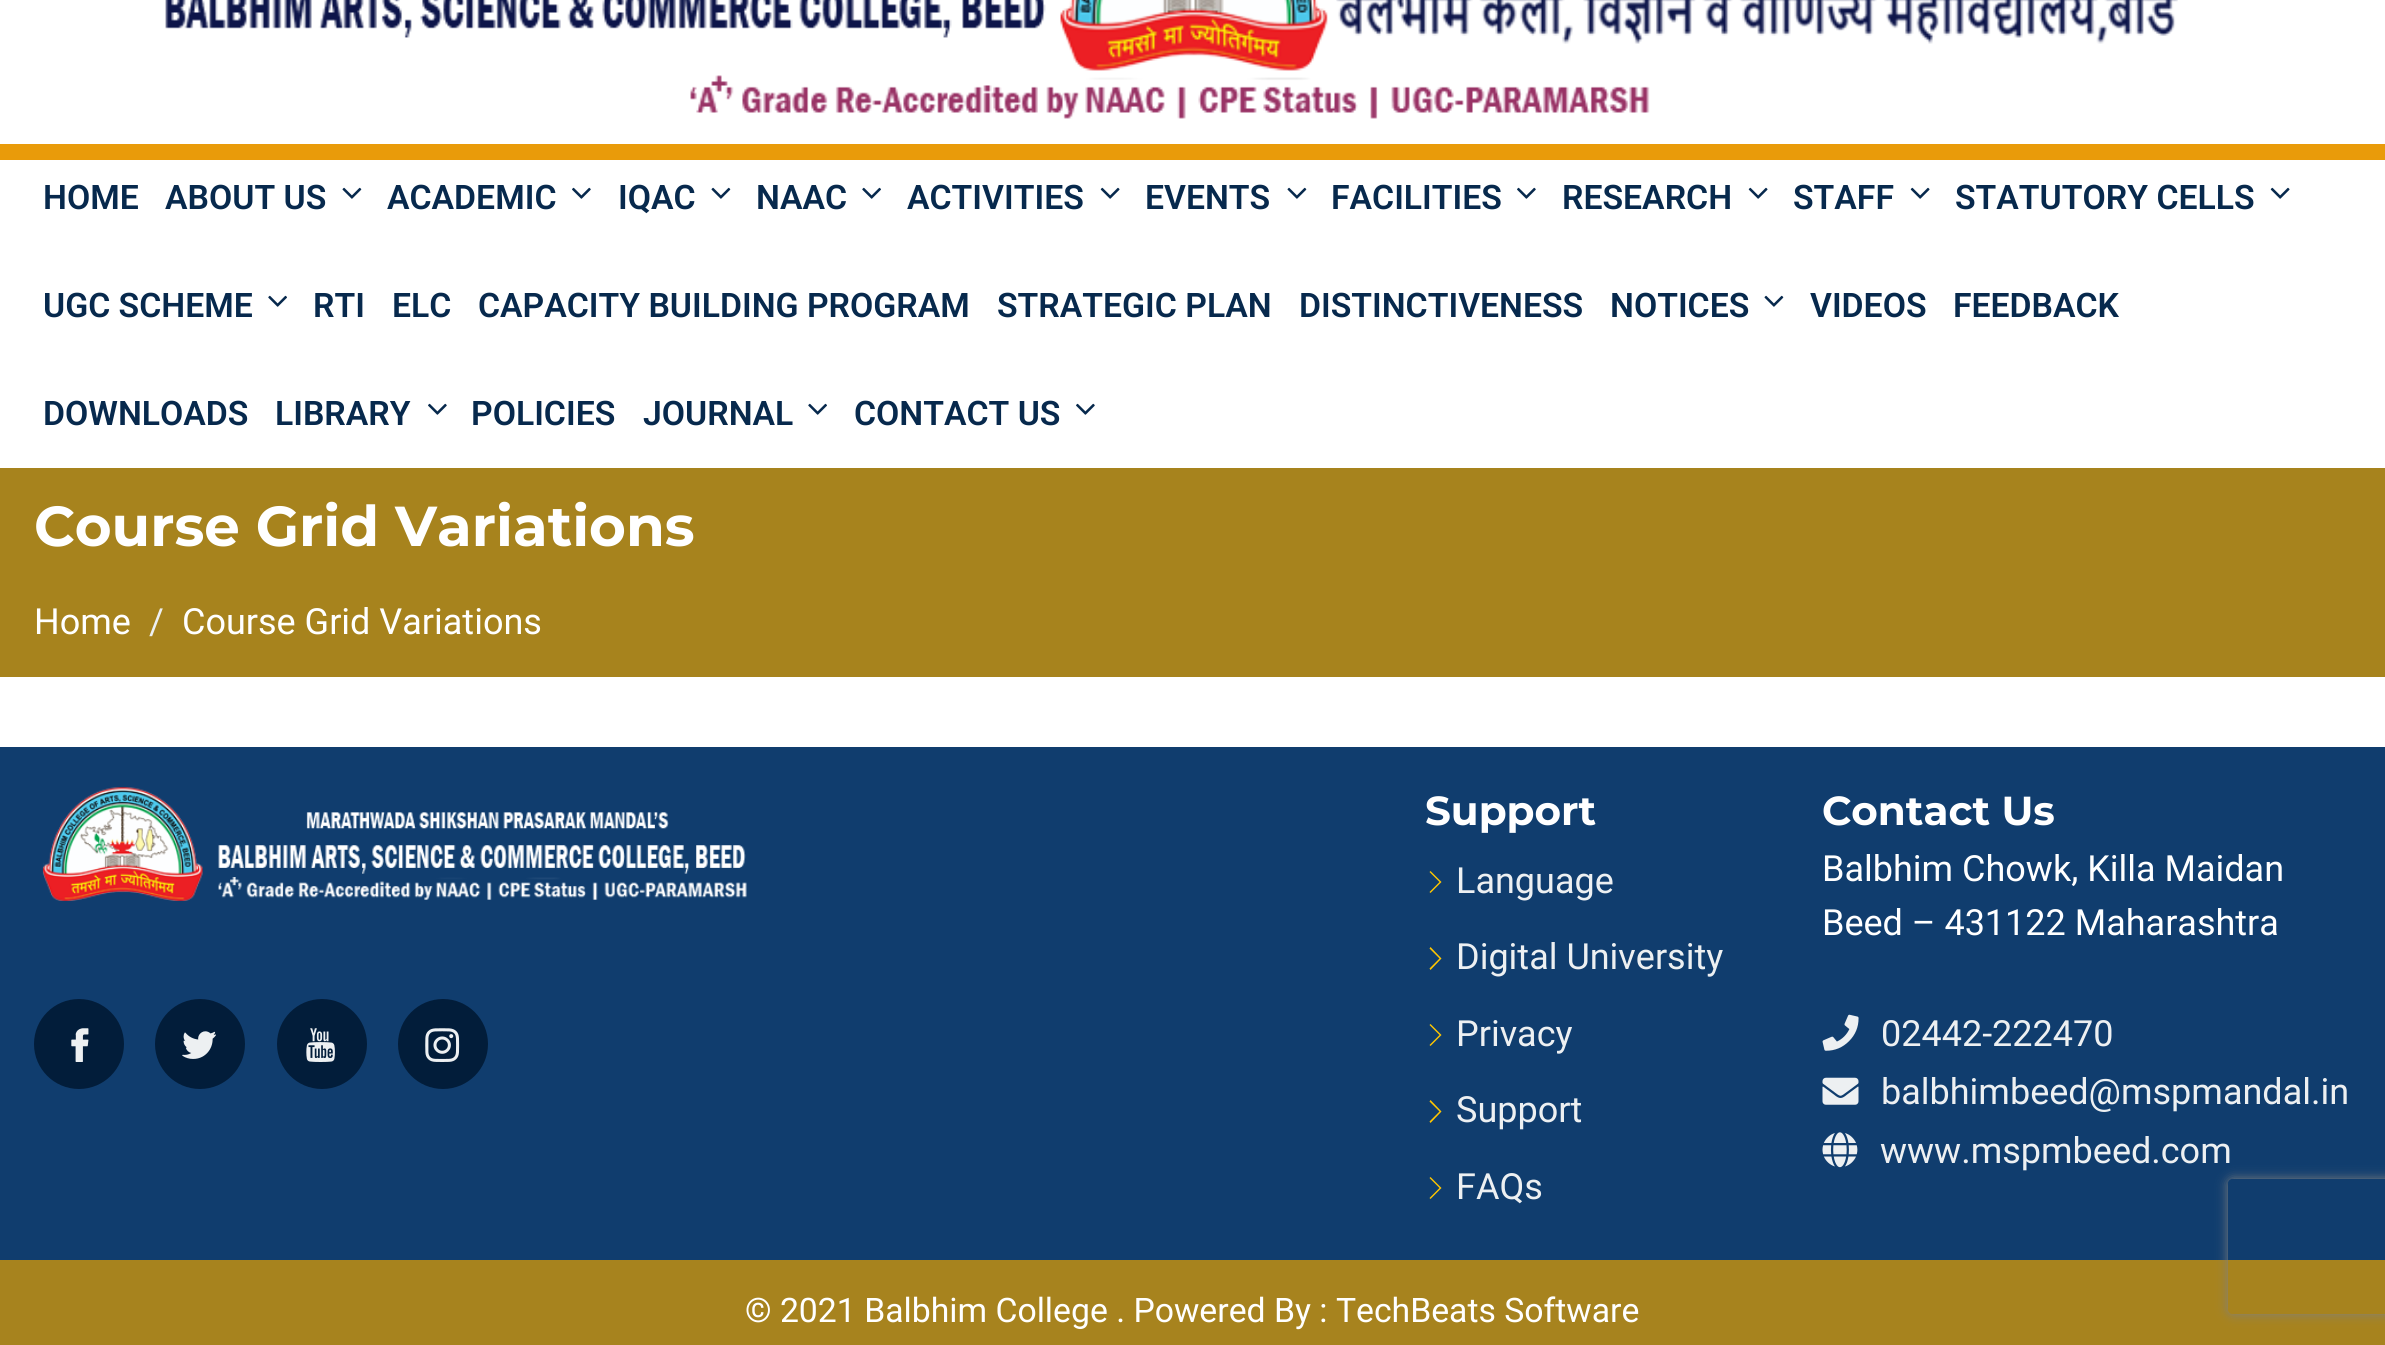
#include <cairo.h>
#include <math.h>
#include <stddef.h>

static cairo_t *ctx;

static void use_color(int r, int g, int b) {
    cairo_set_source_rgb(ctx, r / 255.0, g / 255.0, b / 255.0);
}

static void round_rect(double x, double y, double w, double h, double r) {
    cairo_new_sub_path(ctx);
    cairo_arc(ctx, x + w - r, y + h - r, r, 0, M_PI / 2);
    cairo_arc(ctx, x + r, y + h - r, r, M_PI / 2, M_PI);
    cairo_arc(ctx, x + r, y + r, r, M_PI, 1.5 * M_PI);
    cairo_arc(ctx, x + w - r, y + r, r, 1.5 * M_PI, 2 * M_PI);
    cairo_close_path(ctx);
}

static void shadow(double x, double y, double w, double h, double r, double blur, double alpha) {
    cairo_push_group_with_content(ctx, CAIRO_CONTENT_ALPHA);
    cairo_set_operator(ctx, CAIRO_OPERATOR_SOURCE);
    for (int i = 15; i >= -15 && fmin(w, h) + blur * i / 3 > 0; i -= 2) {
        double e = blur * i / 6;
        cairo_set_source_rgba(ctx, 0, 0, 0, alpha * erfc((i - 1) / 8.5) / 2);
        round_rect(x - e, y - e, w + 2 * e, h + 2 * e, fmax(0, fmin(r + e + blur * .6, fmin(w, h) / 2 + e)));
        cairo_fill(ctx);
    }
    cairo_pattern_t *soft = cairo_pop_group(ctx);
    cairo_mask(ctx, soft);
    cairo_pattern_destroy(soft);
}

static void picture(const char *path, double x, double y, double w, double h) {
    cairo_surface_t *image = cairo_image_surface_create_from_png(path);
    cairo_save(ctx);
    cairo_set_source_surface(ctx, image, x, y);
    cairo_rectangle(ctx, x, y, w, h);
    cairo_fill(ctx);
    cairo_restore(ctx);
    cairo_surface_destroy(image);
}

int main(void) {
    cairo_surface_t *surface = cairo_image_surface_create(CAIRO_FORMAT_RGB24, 2385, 1345);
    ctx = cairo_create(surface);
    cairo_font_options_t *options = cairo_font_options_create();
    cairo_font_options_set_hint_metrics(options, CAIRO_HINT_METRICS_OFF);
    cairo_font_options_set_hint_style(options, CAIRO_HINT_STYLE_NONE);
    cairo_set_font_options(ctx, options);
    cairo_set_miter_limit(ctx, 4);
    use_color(255, 255, 255);
    cairo_paint(ctx);
    use_color(233, 155, 10);
    cairo_rectangle(ctx, 0, 144, 2385, 16);
    cairo_fill(ctx);
    picture("img1.png", 165, 0, 2013, 119);
    cairo_select_font_face(ctx, "Roboto SemiBold", CAIRO_FONT_SLANT_NORMAL, CAIRO_FONT_WEIGHT_NORMAL);
    cairo_set_font_size(ctx, 33.75);
    use_color(7, 41, 77);
    cairo_move_to(ctx, 43, 209);
    cairo_show_text(ctx, "HOME");
    cairo_move_to(ctx, 165, 209);
    cairo_show_text(ctx, "ABOUT US");
    picture("img2.png", 342, 187, 20, 12);
    cairo_move_to(ctx, 387, 209);
    cairo_show_text(ctx, "ACADEMIC");
    picture("img3.png", 572, 187, 19, 12);
    cairo_move_to(ctx, 618, 209);
    cairo_show_text(ctx, "IQAC");
    picture("img2.png", 711, 187, 20, 12);
    cairo_move_to(ctx, 756, 209);
    cairo_show_text(ctx, "NAAC");
    picture("img4.png", 862, 187, 19, 12);
    cairo_move_to(ctx, 907, 209);
    cairo_show_text(ctx, "ACTIVITIES");
    picture("img5.png", 1100, 187, 20, 12);
    cairo_move_to(ctx, 1145, 209);
    cairo_show_text(ctx, "EVENTS");
    picture("img2.png", 1287, 187, 20, 12);
    cairo_move_to(ctx, 1331, 209);
    cairo_show_text(ctx, "FACILITIES");
    picture("img3.png", 1517, 187, 19, 12);
    cairo_move_to(ctx, 1562, 209);
    cairo_show_text(ctx, "RESEARCH");
    picture("img5.png", 1748, 187, 20, 12);
    cairo_move_to(ctx, 1793, 209);
    cairo_show_text(ctx, "STAFF");
    picture("img5.png", 1910, 187, 20, 12);
    cairo_move_to(ctx, 1955, 209);
    cairo_show_text(ctx, "STATUTORY CELLS");
    picture("img5.png", 2270, 187, 20, 12);
    cairo_move_to(ctx, 43, 317);
    cairo_show_text(ctx, "UGC SCHEME");
    picture("img4.png", 268, 295, 19, 12);
    cairo_move_to(ctx, 313, 317);
    cairo_show_text(ctx, "RTI");
    cairo_move_to(ctx, 392, 317);
    cairo_show_text(ctx, "ELC");
    cairo_move_to(ctx, 478, 317);
    cairo_show_text(ctx, "CAPACITY BUILDING PROGRAM");
    cairo_move_to(ctx, 997, 317);
    cairo_show_text(ctx, "STRATEGIC PLAN");
    cairo_move_to(ctx, 1299, 317);
    cairo_show_text(ctx, "DISTINCTIVENESS");
    cairo_move_to(ctx, 1610, 317);
    cairo_show_text(ctx, "NOTICES");
    picture("img2.png", 1764, 295, 20, 12);
    cairo_move_to(ctx, 1810, 317);
    cairo_show_text(ctx, "VIDEOS");
    cairo_move_to(ctx, 1953, 317);
    cairo_show_text(ctx, "FEEDBACK");
    cairo_move_to(ctx, 43, 425);
    cairo_show_text(ctx, "DOWNLOADS");
    cairo_move_to(ctx, 275, 425);
    cairo_show_text(ctx, "LIBRARY");
    picture("img3.png", 428, 403, 19, 12);
    cairo_move_to(ctx, 471, 425);
    cairo_show_text(ctx, "POLICIES");
    cairo_move_to(ctx, 643, 425);
    cairo_show_text(ctx, "JOURNAL");
    picture("img4.png", 808, 403, 19, 12);
    cairo_move_to(ctx, 854, 425);
    cairo_show_text(ctx, "CONTACT US");
    picture("img3.png", 1076, 403, 19, 12);
    use_color(167, 131, 29);
    cairo_rectangle(ctx, 0, 468, 2385, 209);
    cairo_fill(ctx);
    cairo_select_font_face(ctx, "Montserrat", CAIRO_FONT_SLANT_NORMAL, CAIRO_FONT_WEIGHT_BOLD);
    cairo_set_font_size(ctx, 56.25);
    use_color(255, 255, 255);
    cairo_move_to(ctx, 34, 546);
    cairo_show_text(ctx, "Course Grid Variations");
    cairo_select_font_face(ctx, "Roboto", CAIRO_FONT_SLANT_NORMAL, CAIRO_FONT_WEIGHT_NORMAL);
    cairo_set_font_size(ctx, 36);
    cairo_move_to(ctx, 34, 634);
    cairo_show_text(ctx, "Home");
    use_color(237, 240, 242);
    cairo_move_to(ctx, 149, 634);
    cairo_show_text(ctx, "/");
    use_color(255, 255, 255);
    cairo_move_to(ctx, 182, 634);
    cairo_show_text(ctx, "Course Grid Variations");
    use_color(16, 61, 110);
    cairo_rectangle(ctx, 0, 747, 2385, 513);
    cairo_fill(ctx);
    picture("img6.png", 42, 787, 705, 114);
    use_color(2, 29, 58);
    cairo_arc(ctx, 79, 1044, 42.5, 0, 2 * M_PI);
    cairo_fill_preserve(ctx);
    cairo_set_line_width(ctx, 5);
    cairo_stroke(ctx);
    picture("img7.png", 71, 1028, 18, 34);
    cairo_arc(ctx, 200, 1044, 42.5, 0, 2 * M_PI);
    cairo_fill_preserve(ctx);
    cairo_stroke(ctx);
    picture("img8.png", 182, 1031, 34, 28);
    cairo_arc(ctx, 322, 1044, 42.5, 0, 2 * M_PI);
    cairo_fill_preserve(ctx);
    cairo_stroke(ctx);
    picture("img9.png", 306, 1028, 29, 34);
    cairo_arc(ctx, 443, 1044, 42.5, 0, 2 * M_PI);
    cairo_fill_preserve(ctx);
    cairo_stroke(ctx);
    picture("img10.png", 425, 1028, 35, 34);
    cairo_select_font_face(ctx, "Montserrat", CAIRO_FONT_SLANT_NORMAL, CAIRO_FONT_WEIGHT_BOLD);
    cairo_set_font_size(ctx, 40.5);
    use_color(255, 255, 255);
    cairo_move_to(ctx, 1425, 825);
    cairo_show_text(ctx, "Support");
    use_color(255, 198, 0);
    cairo_new_path(ctx);
    cairo_move_to(ctx, 1430.5, 871);
    cairo_line_to(ctx, 1429.5, 872);
    cairo_line_to(ctx, 1439.5, 882);
    cairo_line_to(ctx, 1429.5, 892);
    cairo_line_to(ctx, 1430.5, 893);
    cairo_line_to(ctx, 1441.5, 882);
    cairo_close_path(ctx);
    cairo_fill(ctx);
    cairo_select_font_face(ctx, "Roboto", CAIRO_FONT_SLANT_NORMAL, CAIRO_FONT_WEIGHT_NORMAL);
    cairo_set_font_size(ctx, 36);
    use_color(237, 240, 242);
    cairo_move_to(ctx, 1456, 893);
    cairo_show_text(ctx, "Language");
    use_color(255, 198, 0);
    cairo_new_path(ctx);
    cairo_move_to(ctx, 1430.5, 947);
    cairo_line_to(ctx, 1429.5, 948.5);
    cairo_line_to(ctx, 1439.5, 958.5);
    cairo_line_to(ctx, 1429.5, 968.5);
    cairo_line_to(ctx, 1430.5, 970);
    cairo_line_to(ctx, 1441.5, 958.5);
    cairo_close_path(ctx);
    cairo_fill(ctx);
    use_color(237, 240, 242);
    cairo_move_to(ctx, 1456, 969);
    cairo_show_text(ctx, "Digital University");
    use_color(255, 198, 0);
    cairo_new_path(ctx);
    cairo_move_to(ctx, 1430.5, 1024);
    cairo_line_to(ctx, 1429.5, 1025);
    cairo_line_to(ctx, 1439.5, 1035);
    cairo_line_to(ctx, 1429.5, 1045);
    cairo_line_to(ctx, 1430.5, 1046);
    cairo_line_to(ctx, 1441.5, 1035);
    cairo_close_path(ctx);
    cairo_fill(ctx);
    use_color(237, 240, 242);
    cairo_move_to(ctx, 1456, 1046);
    cairo_show_text(ctx, "Privacy");
    use_color(255, 198, 0);
    cairo_new_path(ctx);
    cairo_move_to(ctx, 1430.5, 1100);
    cairo_line_to(ctx, 1429.5, 1101.5);
    cairo_line_to(ctx, 1439.5, 1111.5);
    cairo_line_to(ctx, 1429.5, 1121.5);
    cairo_line_to(ctx, 1430.5, 1123);
    cairo_line_to(ctx, 1441.5, 1111.5);
    cairo_close_path(ctx);
    cairo_fill(ctx);
    use_color(237, 240, 242);
    cairo_move_to(ctx, 1456, 1122);
    cairo_show_text(ctx, "Support");
    use_color(255, 198, 0);
    cairo_new_path(ctx);
    cairo_move_to(ctx, 1430.5, 1177);
    cairo_line_to(ctx, 1429.5, 1178);
    cairo_line_to(ctx, 1439.5, 1188);
    cairo_line_to(ctx, 1429.5, 1198);
    cairo_line_to(ctx, 1430.5, 1199);
    cairo_line_to(ctx, 1441.5, 1188);
    cairo_close_path(ctx);
    cairo_fill(ctx);
    use_color(237, 240, 242);
    cairo_move_to(ctx, 1456, 1199);
    cairo_show_text(ctx, "FAQs");
    cairo_select_font_face(ctx, "Montserrat", CAIRO_FONT_SLANT_NORMAL, CAIRO_FONT_WEIGHT_BOLD);
    cairo_set_font_size(ctx, 40.5);
    use_color(255, 255, 255);
    cairo_move_to(ctx, 1822, 825);
    cairo_show_text(ctx, "Contact Us");
    cairo_select_font_face(ctx, "Roboto", CAIRO_FONT_SLANT_NORMAL, CAIRO_FONT_WEIGHT_NORMAL);
    cairo_set_font_size(ctx, 36);
    cairo_move_to(ctx, 1822, 881);
    cairo_show_text(ctx, "Balbhim Chowk, Killa Maidan");
    cairo_move_to(ctx, 1822, 935);
    cairo_show_text(ctx, "Beed – 431122 Maharashtra");
    picture("img11.png", 1822, 1014, 37, 37);
    use_color(237, 240, 242);
    cairo_move_to(ctx, 1881, 1046);
    cairo_show_text(ctx, "02442-222470");
    picture("img12.png", 1822, 1077, 37, 28);
    cairo_move_to(ctx, 1881, 1104);
    cairo_show_text(ctx, "balbhimbeed@mspmandal.in");
    picture("img13.png", 1822, 1132, 36, 36);
    cairo_move_to(ctx, 1880, 1163);
    cairo_show_text(ctx, "www.mspmbeed.com");
    use_color(167, 131, 30);
    cairo_rectangle(ctx, 0, 1260, 2385, 85);
    cairo_fill(ctx);
    cairo_set_font_size(ctx, 33.75);
    use_color(255, 255, 255);
    cairo_move_to(ctx, 745, 1322);
    cairo_show_text(ctx, "© 2021 Balbhim College . Powered By : TechBeats Software");
    cairo_save(ctx);
    cairo_set_fill_rule(ctx, CAIRO_FILL_RULE_EVEN_ODD);
    cairo_new_path(ctx);
    cairo_move_to(ctx, 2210, 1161);
    cairo_line_to(ctx, 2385, 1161);
    cairo_line_to(ctx, 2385, 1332);
    cairo_line_to(ctx, 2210, 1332);
    cairo_close_path(ctx);
    cairo_move_to(ctx, 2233, 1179);
    cairo_line_to(ctx, 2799, 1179);
    cairo_curve_to(ctx, 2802, 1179, 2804, 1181, 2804, 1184);
    cairo_line_to(ctx, 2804, 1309);
    cairo_curve_to(ctx, 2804, 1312, 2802, 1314, 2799, 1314);
    cairo_line_to(ctx, 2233, 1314);
    cairo_curve_to(ctx, 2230, 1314, 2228, 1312, 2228, 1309);
    cairo_line_to(ctx, 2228, 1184);
    cairo_curve_to(ctx, 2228, 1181, 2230, 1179, 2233, 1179);
    cairo_close_path(ctx);
    cairo_clip(ctx);
    use_color(128, 128, 128);
    shadow(2228, 1179, 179, 135, 5, 5.5, 1);
    cairo_restore(ctx);
    cairo_surface_write_to_png(surface, "result.png");
    cairo_font_options_destroy(options);
    cairo_destroy(ctx);
    cairo_surface_destroy(surface);
    return 0;
}
